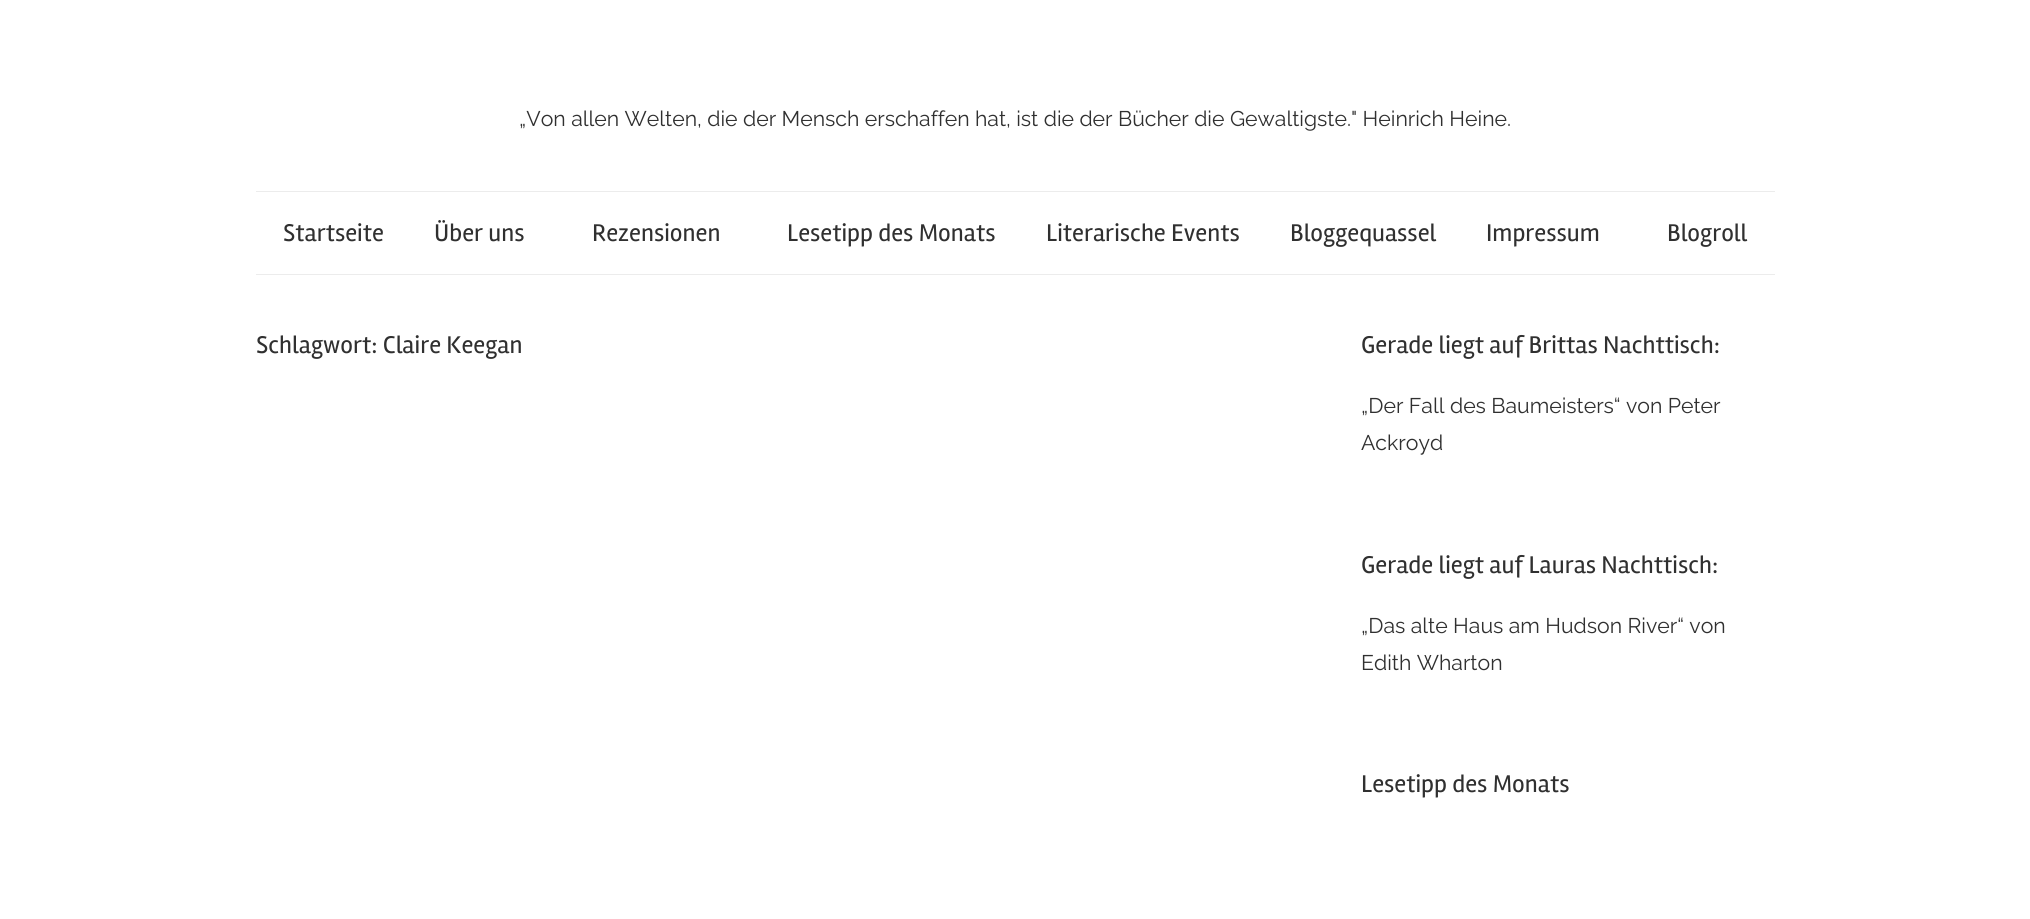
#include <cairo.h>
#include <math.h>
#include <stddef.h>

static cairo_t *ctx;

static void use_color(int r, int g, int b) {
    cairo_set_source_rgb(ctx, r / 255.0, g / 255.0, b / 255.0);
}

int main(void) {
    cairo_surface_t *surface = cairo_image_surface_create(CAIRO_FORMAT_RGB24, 2030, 919);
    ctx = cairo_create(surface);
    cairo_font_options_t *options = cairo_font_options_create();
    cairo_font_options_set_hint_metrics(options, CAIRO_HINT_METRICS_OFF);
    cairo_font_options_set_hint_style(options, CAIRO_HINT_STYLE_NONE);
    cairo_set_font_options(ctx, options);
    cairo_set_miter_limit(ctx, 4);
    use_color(255, 255, 255);
    cairo_paint(ctx);
    use_color(236, 236, 236);
    cairo_rectangle(ctx, 256, 274, 1519, 1);
    cairo_fill(ctx);
    cairo_select_font_face(ctx, "Raleway", CAIRO_FONT_SLANT_NORMAL, CAIRO_FONT_WEIGHT_NORMAL);
    cairo_set_font_size(ctx, 21.25);
    use_color(48, 48, 48);
    cairo_move_to(ctx, 519, 126);
    cairo_show_text(ctx, "„Von allen Welten, die der Mensch erschaffen hat, ist die der Bücher die Gewaltigste.\" Heinrich Heine.");
    use_color(236, 236, 236);
    cairo_rectangle(ctx, 256, 191, 1519, 1);
    cairo_fill(ctx);
    cairo_select_font_face(ctx, "Rambla", CAIRO_FONT_SLANT_NORMAL, CAIRO_FONT_WEIGHT_NORMAL);
    cairo_set_font_size(ctx, 25);
    use_color(48, 48, 48);
    cairo_move_to(ctx, 283, 241);
    cairo_show_text(ctx, "Startseite");
    cairo_move_to(ctx, 434, 241);
    cairo_show_text(ctx, "Über uns");
    cairo_move_to(ctx, 592, 241);
    cairo_show_text(ctx, "Rezensionen");
    cairo_move_to(ctx, 787, 241);
    cairo_show_text(ctx, "Lesetipp des Monats");
    cairo_move_to(ctx, 1046, 241);
    cairo_show_text(ctx, "Literarische Events");
    cairo_move_to(ctx, 1290, 241);
    cairo_show_text(ctx, "Bloggequassel");
    cairo_move_to(ctx, 1486, 241);
    cairo_show_text(ctx, "Impressum");
    cairo_move_to(ctx, 1667, 241);
    cairo_show_text(ctx, "Blogroll");
    cairo_move_to(ctx, 256, 353);
    cairo_show_text(ctx, "Schlagwort: Claire Keegan");
    cairo_move_to(ctx, 1361, 353);
    cairo_show_text(ctx, "Gerade liegt auf Brittas Nachttisch:");
    cairo_select_font_face(ctx, "Raleway", CAIRO_FONT_SLANT_NORMAL, CAIRO_FONT_WEIGHT_NORMAL);
    cairo_set_font_size(ctx, 21.25);
    cairo_move_to(ctx, 1361, 413);
    cairo_show_text(ctx, "„Der Fall des Baumeisters“ von Peter");
    cairo_move_to(ctx, 1361, 450);
    cairo_show_text(ctx, "Ackroyd");
    cairo_select_font_face(ctx, "Rambla", CAIRO_FONT_SLANT_NORMAL, CAIRO_FONT_WEIGHT_NORMAL);
    cairo_set_font_size(ctx, 25);
    cairo_move_to(ctx, 1361, 573);
    cairo_show_text(ctx, "Gerade liegt auf Lauras Nachttisch:");
    cairo_select_font_face(ctx, "Raleway", CAIRO_FONT_SLANT_NORMAL, CAIRO_FONT_WEIGHT_NORMAL);
    cairo_set_font_size(ctx, 21.25);
    cairo_move_to(ctx, 1361, 633);
    cairo_show_text(ctx, "„Das alte Haus am Hudson River“ von");
    cairo_move_to(ctx, 1361, 670);
    cairo_show_text(ctx, "Edith Wharton");
    cairo_select_font_face(ctx, "Rambla", CAIRO_FONT_SLANT_NORMAL, CAIRO_FONT_WEIGHT_NORMAL);
    cairo_set_font_size(ctx, 25);
    cairo_move_to(ctx, 1361, 792);
    cairo_show_text(ctx, "Lesetipp des Monats");
    cairo_surface_write_to_png(surface, "result.png");
    cairo_font_options_destroy(options);
    cairo_destroy(ctx);
    cairo_surface_destroy(surface);
    return 0;
}
